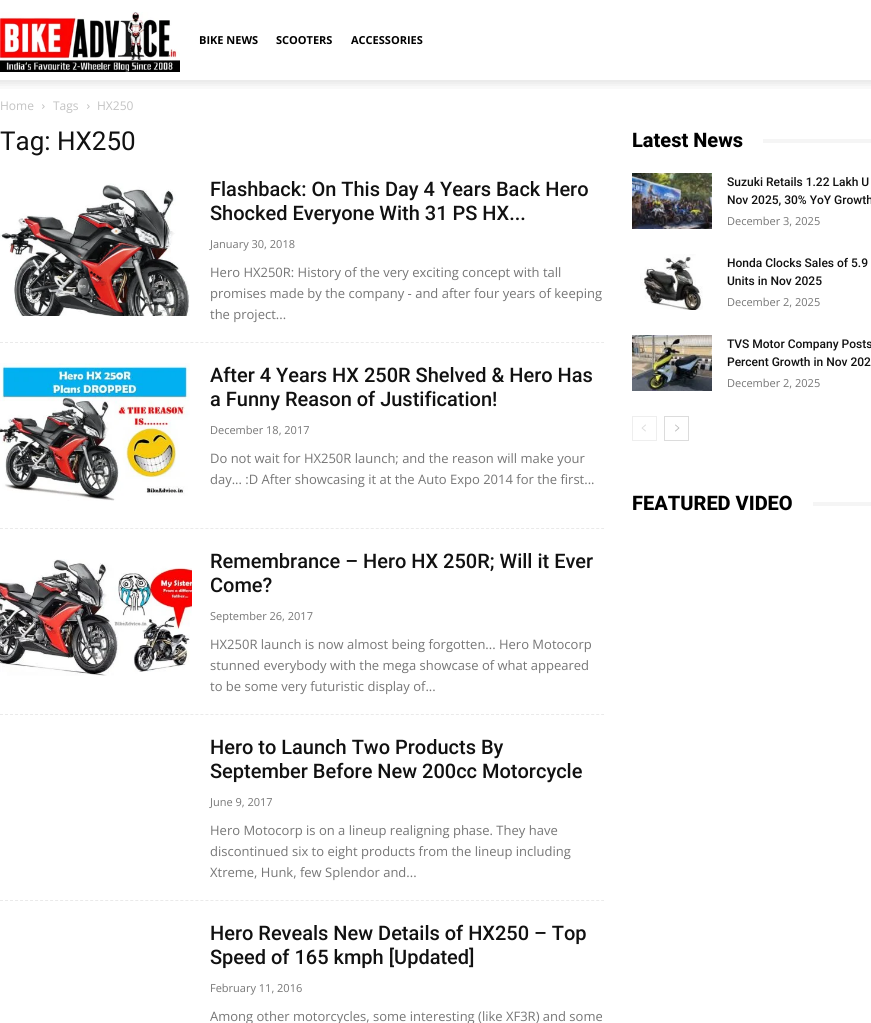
#include <cairo.h>
#include <math.h>
#include <stddef.h>

static cairo_t *ctx;

static void use_color(int r, int g, int b) {
    cairo_set_source_rgb(ctx, r / 255.0, g / 255.0, b / 255.0);
}

static void picture(const char *path, double x, double y, double w, double h) {
    cairo_surface_t *image = cairo_image_surface_create_from_png(path);
    cairo_save(ctx);
    cairo_set_source_surface(ctx, image, x, y);
    cairo_rectangle(ctx, x, y, w, h);
    cairo_fill(ctx);
    cairo_restore(ctx);
    cairo_surface_destroy(image);
}

int main(void) {
    cairo_surface_t *surface = cairo_image_surface_create(CAIRO_FORMAT_RGB24, 871, 1023);
    ctx = cairo_create(surface);
    cairo_font_options_t *options = cairo_font_options_create();
    cairo_font_options_set_hint_metrics(options, CAIRO_HINT_METRICS_OFF);
    cairo_font_options_set_hint_style(options, CAIRO_HINT_STYLE_NONE);
    cairo_set_font_options(ctx, options);
    cairo_set_miter_limit(ctx, 4);
    use_color(255, 255, 255);
    cairo_paint(ctx);
    picture("img1.png", 0, 12, 180, 60);
    cairo_select_font_face(ctx, "Open Sans", CAIRO_FONT_SLANT_NORMAL, CAIRO_FONT_WEIGHT_BOLD);
    cairo_set_font_size(ctx, 11);
    use_color(0, 0, 0);
    cairo_move_to(ctx, 199, 44);
    cairo_show_text(ctx, "BIKE NEWS");
    cairo_move_to(ctx, 276, 44);
    cairo_show_text(ctx, "SCOOTERS");
    cairo_move_to(ctx, 351, 44);
    cairo_show_text(ctx, "ACCESSORIES");
    picture("img2.png", 0, 80, 871, 9);
    cairo_select_font_face(ctx, "Open Sans", CAIRO_FONT_SLANT_NORMAL, CAIRO_FONT_WEIGHT_NORMAL);
    cairo_set_font_size(ctx, 12);
    use_color(195, 195, 195);
    cairo_move_to(ctx, 0, 110);
    cairo_show_text(ctx, "Home");
    picture("img3.png", 42, 104, 3, 5);
    cairo_move_to(ctx, 53, 110);
    cairo_show_text(ctx, "Tags");
    picture("img3.png", 87, 104, 3, 5);
    cairo_move_to(ctx, 97, 110);
    cairo_show_text(ctx, "HX250");
    cairo_select_font_face(ctx, "Roboto", CAIRO_FONT_SLANT_NORMAL, CAIRO_FONT_WEIGHT_NORMAL);
    cairo_set_font_size(ctx, 26);
    use_color(17, 17, 17);
    cairo_move_to(ctx, 0, 150);
    cairo_show_text(ctx, "Tag: HX250");
    cairo_new_path(ctx);
    cairo_move_to(ctx, 0, 342.5);
    cairo_line_to(ctx, 604, 342.5);
    use_color(234, 234, 234);
    cairo_set_line_width(ctx, 1);
    cairo_set_dash(ctx, (double[]){3, 2.01}, 2, 0);
    cairo_stroke(ctx);
    picture("img4.png", 0, 183, 190, 133);
    cairo_select_font_face(ctx, "Roboto Medium", CAIRO_FONT_SLANT_NORMAL, CAIRO_FONT_WEIGHT_NORMAL);
    cairo_set_font_size(ctx, 20);
    use_color(17, 17, 17);
    cairo_move_to(ctx, 210, 196);
    cairo_show_text(ctx, "Flashback: On This Day 4 Years Back Hero");
    cairo_move_to(ctx, 210, 220);
    cairo_show_text(ctx, "Shocked Everyone With 31 PS HX...");
    cairo_select_font_face(ctx, "Open Sans", CAIRO_FONT_SLANT_NORMAL, CAIRO_FONT_WEIGHT_NORMAL);
    cairo_set_font_size(ctx, 11);
    use_color(118, 118, 118);
    cairo_move_to(ctx, 210, 248);
    cairo_show_text(ctx, "January 30, 2018");
    cairo_set_font_size(ctx, 13);
    cairo_move_to(ctx, 210, 277);
    cairo_show_text(ctx, "Hero HX250R: History of the very exciting concept with tall");
    cairo_move_to(ctx, 210, 298);
    cairo_show_text(ctx, "promises made by the company - and after four years of keeping");
    cairo_move_to(ctx, 210, 319);
    cairo_show_text(ctx, "the project...");
    cairo_new_path(ctx);
    cairo_move_to(ctx, 0, 528.5);
    cairo_line_to(ctx, 604, 528.5);
    use_color(234, 234, 234);
    cairo_stroke(ctx);
    picture("img5.png", 0, 363, 190, 138);
    cairo_select_font_face(ctx, "Roboto Medium", CAIRO_FONT_SLANT_NORMAL, CAIRO_FONT_WEIGHT_NORMAL);
    cairo_set_font_size(ctx, 20);
    use_color(17, 17, 17);
    cairo_move_to(ctx, 210, 382);
    cairo_show_text(ctx, "After 4 Years HX 250R Shelved & Hero Has");
    cairo_move_to(ctx, 210, 406);
    cairo_show_text(ctx, "a Funny Reason of Justification!");
    cairo_select_font_face(ctx, "Open Sans", CAIRO_FONT_SLANT_NORMAL, CAIRO_FONT_WEIGHT_NORMAL);
    cairo_set_font_size(ctx, 11);
    use_color(118, 118, 118);
    cairo_move_to(ctx, 210, 434);
    cairo_show_text(ctx, "December 18, 2017");
    cairo_set_font_size(ctx, 13);
    cairo_move_to(ctx, 210, 463);
    cairo_show_text(ctx, "Do not wait for HX250R launch; and the reason will make your");
    cairo_move_to(ctx, 210, 484);
    cairo_show_text(ctx, "day... :D After showcasing it at the Auto Expo 2014 for the first...");
    cairo_new_path(ctx);
    cairo_move_to(ctx, 0, 714.5);
    cairo_line_to(ctx, 604, 714.5);
    use_color(234, 234, 234);
    cairo_stroke(ctx);
    picture("img6.png", 0, 559, 192, 117);
    cairo_select_font_face(ctx, "Roboto Medium", CAIRO_FONT_SLANT_NORMAL, CAIRO_FONT_WEIGHT_NORMAL);
    cairo_set_font_size(ctx, 20);
    use_color(17, 17, 17);
    cairo_move_to(ctx, 210, 568);
    cairo_show_text(ctx, "Remembrance – Hero HX 250R; Will it Ever");
    cairo_move_to(ctx, 210, 592);
    cairo_show_text(ctx, "Come?");
    cairo_select_font_face(ctx, "Open Sans", CAIRO_FONT_SLANT_NORMAL, CAIRO_FONT_WEIGHT_NORMAL);
    cairo_set_font_size(ctx, 11);
    use_color(118, 118, 118);
    cairo_move_to(ctx, 210, 620);
    cairo_show_text(ctx, "September 26, 2017");
    cairo_set_font_size(ctx, 13);
    cairo_move_to(ctx, 210, 649);
    cairo_show_text(ctx, "HX250R launch is now almost being forgotten... Hero Motocorp");
    cairo_move_to(ctx, 210, 670);
    cairo_show_text(ctx, "stunned everybody with the mega showcase of what appeared");
    cairo_move_to(ctx, 210, 691);
    cairo_show_text(ctx, "to be some very futuristic display of...");
    cairo_new_path(ctx);
    cairo_move_to(ctx, 0, 900.5);
    cairo_line_to(ctx, 604, 900.5);
    use_color(234, 234, 234);
    cairo_stroke(ctx);
    cairo_select_font_face(ctx, "Roboto Medium", CAIRO_FONT_SLANT_NORMAL, CAIRO_FONT_WEIGHT_NORMAL);
    cairo_set_font_size(ctx, 20);
    use_color(17, 17, 17);
    cairo_move_to(ctx, 210, 754);
    cairo_show_text(ctx, "Hero to Launch Two Products By");
    cairo_move_to(ctx, 210, 778);
    cairo_show_text(ctx, "September Before New 200cc Motorcycle");
    cairo_select_font_face(ctx, "Open Sans", CAIRO_FONT_SLANT_NORMAL, CAIRO_FONT_WEIGHT_NORMAL);
    cairo_set_font_size(ctx, 11);
    use_color(118, 118, 118);
    cairo_move_to(ctx, 210, 806);
    cairo_show_text(ctx, "June 9, 2017");
    cairo_set_font_size(ctx, 13);
    cairo_move_to(ctx, 210, 835);
    cairo_show_text(ctx, "Hero Motocorp is on a lineup realigning phase. They have");
    cairo_move_to(ctx, 210, 856);
    cairo_show_text(ctx, "discontinued six to eight products from the lineup including");
    cairo_move_to(ctx, 210, 877);
    cairo_show_text(ctx, "Xtreme, Hunk, few Splendor and...");
    cairo_select_font_face(ctx, "Roboto Medium", CAIRO_FONT_SLANT_NORMAL, CAIRO_FONT_WEIGHT_NORMAL);
    cairo_set_font_size(ctx, 20);
    use_color(17, 17, 17);
    cairo_move_to(ctx, 210, 940);
    cairo_show_text(ctx, "Hero Reveals New Details of HX250 – Top");
    cairo_move_to(ctx, 210, 964);
    cairo_show_text(ctx, "Speed of 165 kmph [Updated]");
    cairo_select_font_face(ctx, "Open Sans", CAIRO_FONT_SLANT_NORMAL, CAIRO_FONT_WEIGHT_NORMAL);
    cairo_set_font_size(ctx, 11);
    use_color(118, 118, 118);
    cairo_move_to(ctx, 210, 992);
    cairo_show_text(ctx, "February 11, 2016");
    cairo_set_font_size(ctx, 13);
    cairo_move_to(ctx, 210, 1021);
    cairo_show_text(ctx, "Among other motorcycles, some interesting (like XF3R) and some");
    cairo_select_font_face(ctx, "Roboto ExtraBold", CAIRO_FONT_SLANT_NORMAL, CAIRO_FONT_WEIGHT_NORMAL);
    cairo_set_font_size(ctx, 20);
    use_color(0, 0, 0);
    cairo_move_to(ctx, 632, 147);
    cairo_show_text(ctx, "Latest News");
    use_color(245, 245, 245);
    cairo_rectangle(ctx, 763, 139, 108, 4);
    cairo_fill(ctx);
    picture("img7.png", 632, 173, 80, 56);
    cairo_select_font_face(ctx, "Roboto Medium", CAIRO_FONT_SLANT_NORMAL, CAIRO_FONT_WEIGHT_NORMAL);
    cairo_set_font_size(ctx, 12);
    use_color(17, 17, 17);
    cairo_move_to(ctx, 727, 186);
    cairo_show_text(ctx, "Suzuki Retails 1.22 Lakh U");
    cairo_move_to(ctx, 727, 204);
    cairo_show_text(ctx, "Nov 2025, 30% YoY Growth");
    cairo_select_font_face(ctx, "Open Sans", CAIRO_FONT_SLANT_NORMAL, CAIRO_FONT_WEIGHT_NORMAL);
    cairo_set_font_size(ctx, 11);
    use_color(118, 118, 118);
    cairo_move_to(ctx, 727, 225);
    cairo_show_text(ctx, "December 3, 2025");
    picture("img8.png", 640, 254, 63, 56);
    cairo_select_font_face(ctx, "Roboto Medium", CAIRO_FONT_SLANT_NORMAL, CAIRO_FONT_WEIGHT_NORMAL);
    cairo_set_font_size(ctx, 12);
    use_color(17, 17, 17);
    cairo_move_to(ctx, 727, 267);
    cairo_show_text(ctx, "Honda Clocks Sales of 5.9");
    cairo_move_to(ctx, 727, 285);
    cairo_show_text(ctx, "Units in Nov 2025");
    cairo_select_font_face(ctx, "Open Sans", CAIRO_FONT_SLANT_NORMAL, CAIRO_FONT_WEIGHT_NORMAL);
    cairo_set_font_size(ctx, 11);
    use_color(118, 118, 118);
    cairo_move_to(ctx, 727, 306);
    cairo_show_text(ctx, "December 2, 2025");
    picture("img9.png", 632, 335, 80, 56);
    cairo_select_font_face(ctx, "Roboto Medium", CAIRO_FONT_SLANT_NORMAL, CAIRO_FONT_WEIGHT_NORMAL);
    cairo_set_font_size(ctx, 12);
    use_color(17, 17, 17);
    cairo_move_to(ctx, 727, 348);
    cairo_show_text(ctx, "TVS Motor Company Posts");
    cairo_move_to(ctx, 727, 366);
    cairo_show_text(ctx, "Percent Growth in Nov 202");
    cairo_select_font_face(ctx, "Open Sans", CAIRO_FONT_SLANT_NORMAL, CAIRO_FONT_WEIGHT_NORMAL);
    cairo_set_font_size(ctx, 11);
    use_color(118, 118, 118);
    cairo_move_to(ctx, 727, 387);
    cairo_show_text(ctx, "December 2, 2025");
    cairo_rectangle(ctx, 632.5, 416.5, 24, 24);
    use_color(238, 238, 238);
    cairo_set_dash(ctx, NULL, 0, 0);
    cairo_stroke(ctx);
    picture("img10.png", 641, 424, 5, 8);
    cairo_rectangle(ctx, 664.5, 416.5, 24, 24);
    use_color(220, 220, 220);
    cairo_stroke(ctx);
    picture("img11.png", 675, 424, 5, 8);
    cairo_select_font_face(ctx, "Roboto ExtraBold", CAIRO_FONT_SLANT_NORMAL, CAIRO_FONT_WEIGHT_NORMAL);
    cairo_set_font_size(ctx, 20);
    use_color(0, 0, 0);
    cairo_move_to(ctx, 632, 510);
    cairo_show_text(ctx, "FEATURED VIDEO");
    use_color(245, 245, 245);
    cairo_rectangle(ctx, 813, 502, 58, 4);
    cairo_fill(ctx);
    cairo_surface_write_to_png(surface, "result.png");
    cairo_font_options_destroy(options);
    cairo_destroy(ctx);
    cairo_surface_destroy(surface);
    return 0;
}
